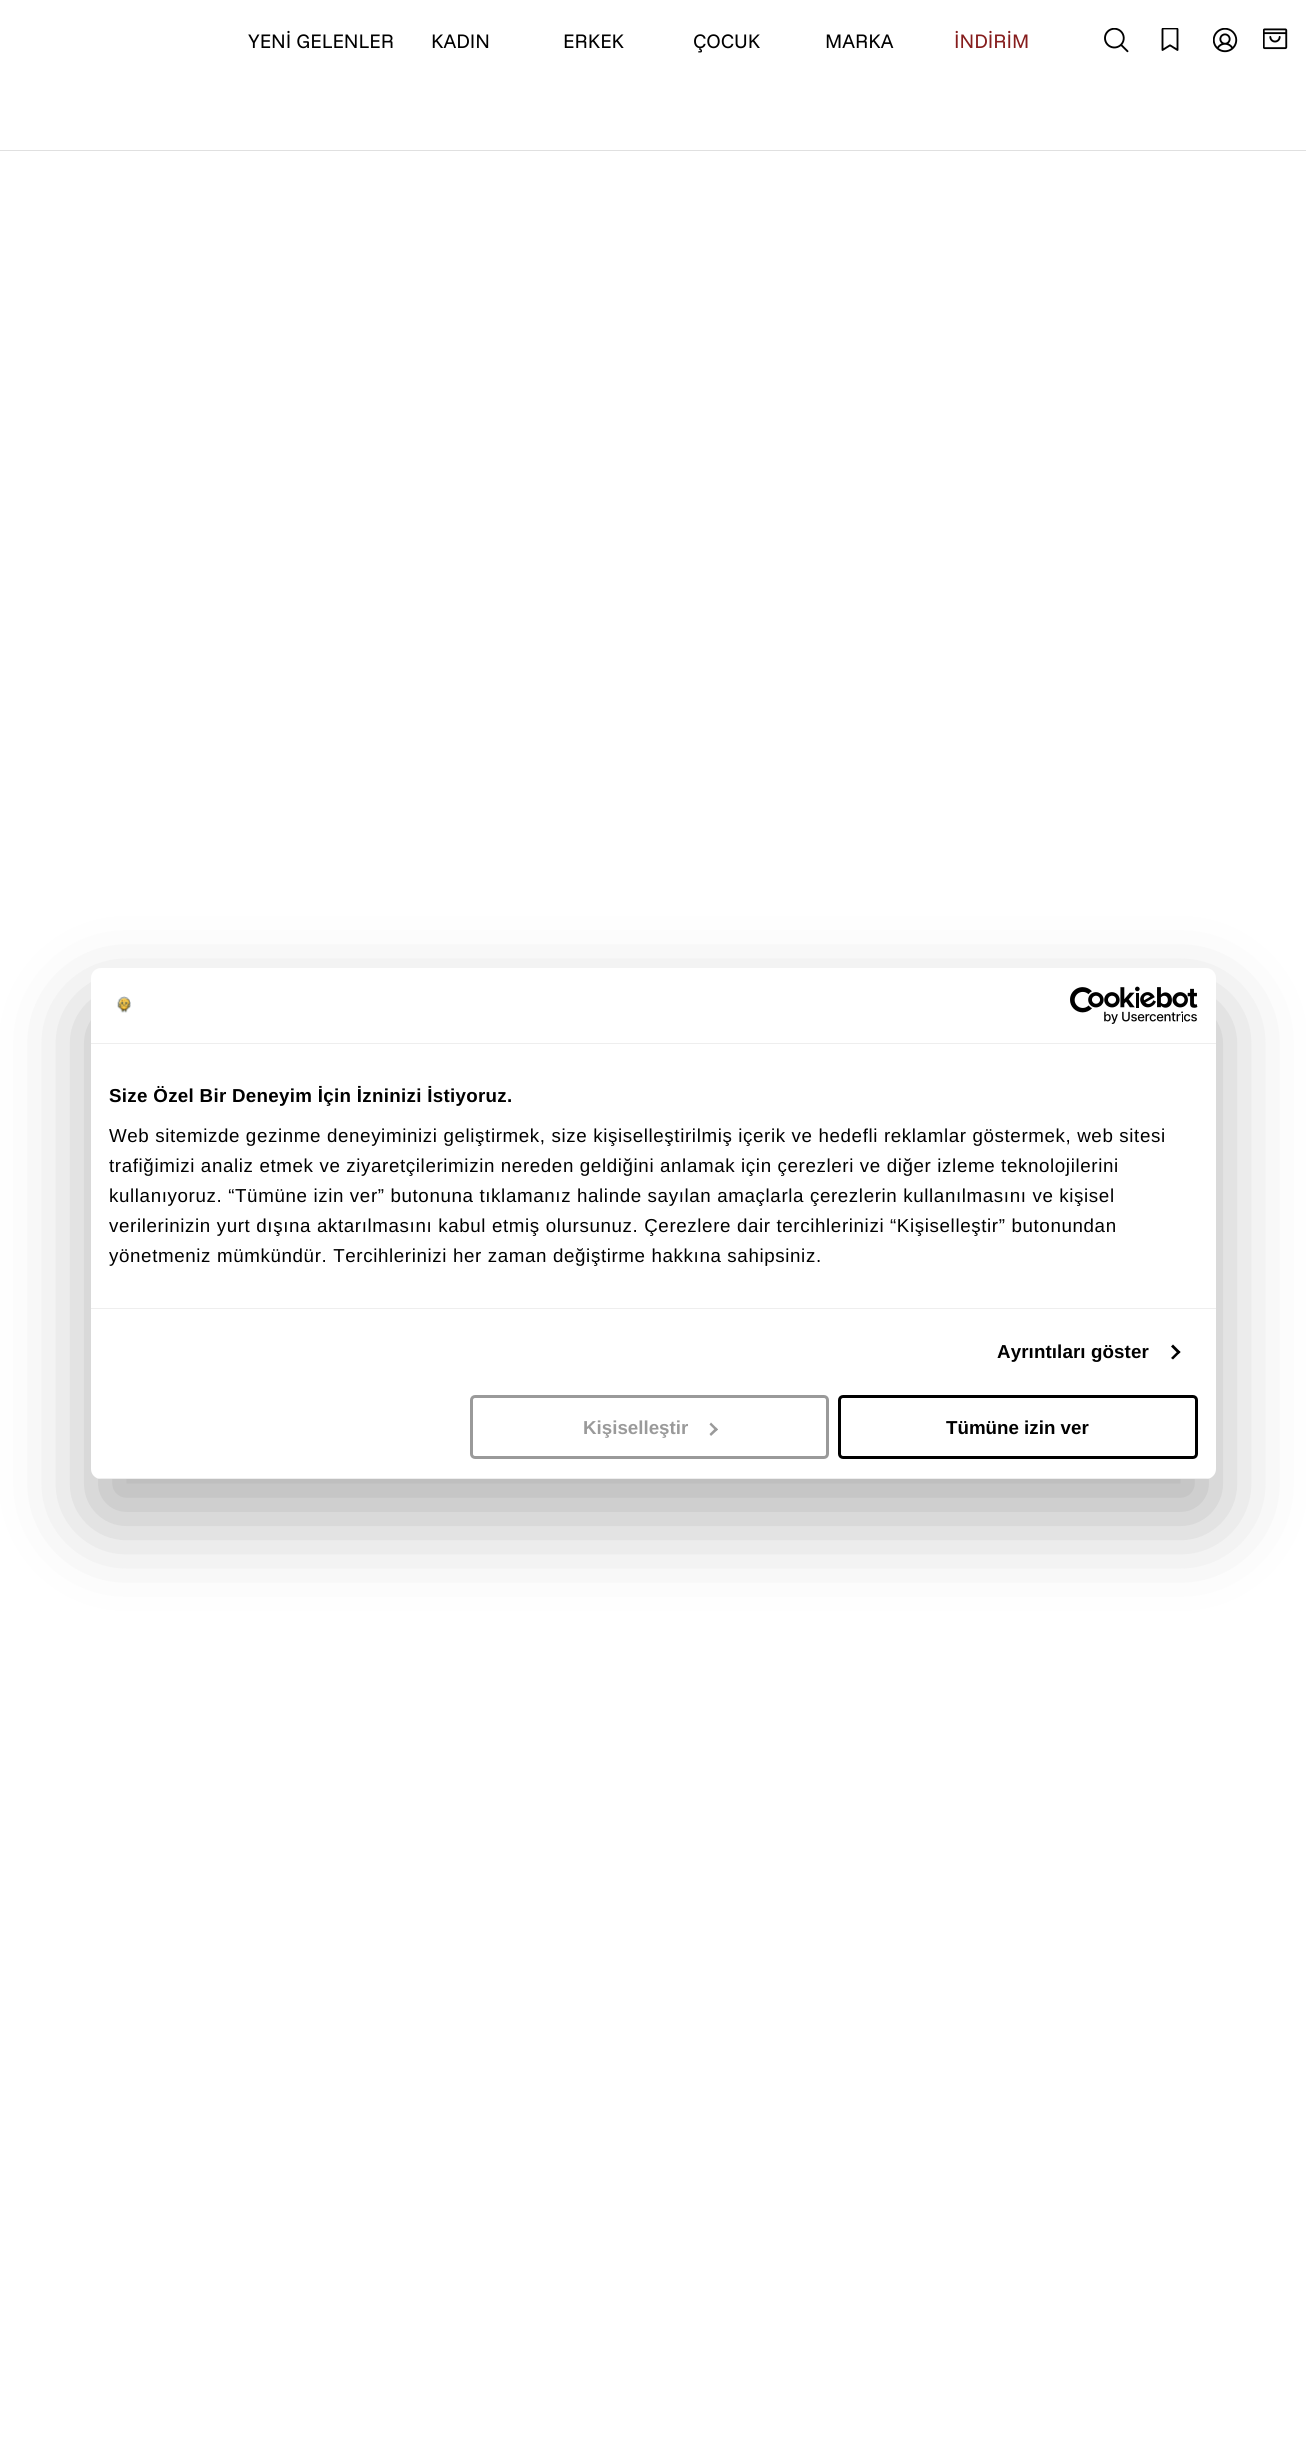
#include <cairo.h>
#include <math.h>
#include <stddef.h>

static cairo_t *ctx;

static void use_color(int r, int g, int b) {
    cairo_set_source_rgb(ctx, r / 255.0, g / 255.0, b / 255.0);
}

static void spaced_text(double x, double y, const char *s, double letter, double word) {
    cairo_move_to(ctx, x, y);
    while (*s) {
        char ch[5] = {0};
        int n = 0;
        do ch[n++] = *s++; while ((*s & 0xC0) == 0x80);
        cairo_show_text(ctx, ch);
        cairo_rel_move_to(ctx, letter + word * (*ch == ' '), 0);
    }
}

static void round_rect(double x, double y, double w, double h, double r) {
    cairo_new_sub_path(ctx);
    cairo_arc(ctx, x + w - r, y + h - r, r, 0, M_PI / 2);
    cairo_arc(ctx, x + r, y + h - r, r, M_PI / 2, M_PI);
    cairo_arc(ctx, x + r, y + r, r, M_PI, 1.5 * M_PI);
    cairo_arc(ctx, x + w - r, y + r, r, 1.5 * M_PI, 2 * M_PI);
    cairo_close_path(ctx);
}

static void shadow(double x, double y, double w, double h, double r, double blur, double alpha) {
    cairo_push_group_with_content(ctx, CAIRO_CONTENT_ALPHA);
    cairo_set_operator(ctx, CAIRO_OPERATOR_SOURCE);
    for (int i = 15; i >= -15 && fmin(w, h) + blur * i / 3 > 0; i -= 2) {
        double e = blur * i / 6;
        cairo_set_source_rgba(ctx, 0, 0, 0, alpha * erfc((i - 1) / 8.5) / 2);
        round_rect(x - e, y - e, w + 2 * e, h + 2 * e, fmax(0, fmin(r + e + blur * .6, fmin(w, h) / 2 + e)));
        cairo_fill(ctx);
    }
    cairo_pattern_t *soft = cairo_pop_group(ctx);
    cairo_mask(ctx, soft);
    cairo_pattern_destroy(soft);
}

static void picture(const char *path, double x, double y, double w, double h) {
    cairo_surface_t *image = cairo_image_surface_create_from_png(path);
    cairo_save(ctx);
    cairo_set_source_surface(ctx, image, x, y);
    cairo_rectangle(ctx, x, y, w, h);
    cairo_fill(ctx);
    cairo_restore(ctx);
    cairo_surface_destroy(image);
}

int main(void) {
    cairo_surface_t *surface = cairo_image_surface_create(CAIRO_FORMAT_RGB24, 1306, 2446);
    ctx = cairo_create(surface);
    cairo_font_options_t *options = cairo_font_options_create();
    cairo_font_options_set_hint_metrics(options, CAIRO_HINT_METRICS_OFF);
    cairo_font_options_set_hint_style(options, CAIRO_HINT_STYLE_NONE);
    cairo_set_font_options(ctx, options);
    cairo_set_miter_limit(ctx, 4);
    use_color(255, 255, 255);
    cairo_paint(ctx);
    cairo_select_font_face(ctx, "Funnel Sans", CAIRO_FONT_SLANT_NORMAL, CAIRO_FONT_WEIGHT_NORMAL);
    cairo_set_font_size(ctx, 20);
    use_color(0, 0, 0);
    cairo_move_to(ctx, 248, 48);
    cairo_show_text(ctx, "YENİ GELENLER");
    cairo_move_to(ctx, 431, 48);
    cairo_show_text(ctx, "KADIN");
    cairo_move_to(ctx, 563, 48);
    cairo_show_text(ctx, "ERKEK");
    cairo_move_to(ctx, 693, 48);
    cairo_show_text(ctx, "ÇOCUK");
    cairo_move_to(ctx, 825, 48);
    cairo_show_text(ctx, "MARKA");
    use_color(134, 29, 29);
    cairo_move_to(ctx, 954, 48);
    cairo_show_text(ctx, "İNDİRİM");
    picture("img1.png", 1104, 28, 25, 25);
    picture("img2.png", 1161, 28, 18, 23);
    picture("img3.png", 1213, 28, 25, 25);
    picture("img4.png", 1263, 28, 25, 22);
    use_color(224, 224, 224);
    cairo_rectangle(ctx, 0, 150, 1306, 1);
    cairo_fill(ctx);
    use_color(0, 0, 0);
    shadow(91, 1008, 1125, 511, 10, 42.5, 0.3);
    use_color(255, 255, 255);
    round_rect(91, 968, 1125, 511, 10);
    cairo_fill(ctx);
    use_color(238, 238, 238);
    cairo_rectangle(ctx, 91, 1043, 1125, 1);
    cairo_fill(ctx);
    picture("img5.png", 117, 996, 14, 17);
    picture("img6.png", 1070, 986, 128, 38);
    cairo_rectangle(ctx, 91, 1308, 1125, 1);
    cairo_fill(ctx);
    cairo_select_font_face(ctx, "Liberation Sans", CAIRO_FONT_SLANT_NORMAL, CAIRO_FONT_WEIGHT_BOLD);
    cairo_set_font_size(ctx, 18.75);
    use_color(0, 0, 0);
    spaced_text(109, 1102, "Size Özel Bir Deneyim İçin İzninizi İstiyoruz.", 0.3, 0);
    cairo_select_font_face(ctx, "Liberation Sans", CAIRO_FONT_SLANT_NORMAL, CAIRO_FONT_WEIGHT_NORMAL);
    spaced_text(109, 1142, "Web sitemizde gezinme deneyiminizi geliştirmek, size kişiselleştirilmiş içerik ve hedefli reklamlar göstermek, web sitesi", 0.62, 0);
    spaced_text(109, 1172, "trafiğimizi analiz etmek ve ziyaretçilerimizin nereden geldiğini anlamak için çerezleri ve diğer izleme teknolojilerini", 0.62, 0);
    spaced_text(109, 1202, "kullanıyoruz. “Tümüne izin ver” butonuna tıklamanız halinde sayılan amaçlarla çerezlerin kullanılmasını ve kişisel", 0.62, 0);
    spaced_text(109, 1232, "verilerinizin yurt dışına aktarılmasını kabul etmiş olursunuz. Çerezlere dair tercihlerinizi “Kişiselleştir” butonundan", 0.62, 0);
    spaced_text(109, 1262, "yönetmeniz mümkündür. Tercihlerinizi her zaman değiştirme hakkına sahipsiniz.", 0.62, 0);
    cairo_select_font_face(ctx, "Liberation Sans", CAIRO_FONT_SLANT_NORMAL, CAIRO_FONT_WEIGHT_BOLD);
    spaced_text(997, 1358, "Ayrıntıları göster", 0.1, 0);
    cairo_new_path(ctx);
    cairo_move_to(ctx, 1173, 1344.5);
    cairo_line_to(ctx, 1180.5, 1352);
    cairo_line_to(ctx, 1178.5, 1354);
    cairo_line_to(ctx, 1171, 1346.5);
    cairo_close_path(ctx);
    cairo_fill(ctx);
    cairo_new_path(ctx);
    cairo_move_to(ctx, 1178.5, 1350.5);
    cairo_line_to(ctx, 1180.5, 1352);
    cairo_line_to(ctx, 1173, 1359.5);
    cairo_line_to(ctx, 1171, 1358);
    cairo_close_path(ctx);
    cairo_fill(ctx);
    cairo_save(ctx);
    round_rect(91, 968, 1125, 511, 10);
    cairo_clip(ctx);
    use_color(238, 238, 238);
    cairo_rectangle(ctx, 91, 1478, 1125, 1);
    cairo_fill(ctx);
    cairo_restore(ctx);
    round_rect(471.5, 1396.5, 356, 61, 3.5);
    use_color(154, 154, 154);
    cairo_set_line_width(ctx, 3);
    cairo_stroke(ctx);
    cairo_move_to(ctx, 583, 1434);
    cairo_show_text(ctx, "Kişiselleştir");
    cairo_new_path(ctx);
    cairo_move_to(ctx, 711, 1422.5);
    cairo_line_to(ctx, 718, 1429.5);
    cairo_line_to(ctx, 716, 1431);
    cairo_line_to(ctx, 709.5, 1424.5);
    cairo_close_path(ctx);
    cairo_fill(ctx);
    cairo_new_path(ctx);
    cairo_move_to(ctx, 716, 1427.5);
    cairo_line_to(ctx, 718, 1429.5);
    cairo_line_to(ctx, 711, 1436);
    cairo_line_to(ctx, 709.5, 1434);
    cairo_close_path(ctx);
    cairo_fill(ctx);
    round_rect(839.5, 1396.5, 357, 61, 3.5);
    use_color(0, 0, 0);
    cairo_stroke(ctx);
    cairo_move_to(ctx, 946, 1434);
    cairo_show_text(ctx, "Tümüne izin ver");
    cairo_surface_write_to_png(surface, "result.png");
    cairo_font_options_destroy(options);
    cairo_destroy(ctx);
    cairo_surface_destroy(surface);
    return 0;
}
